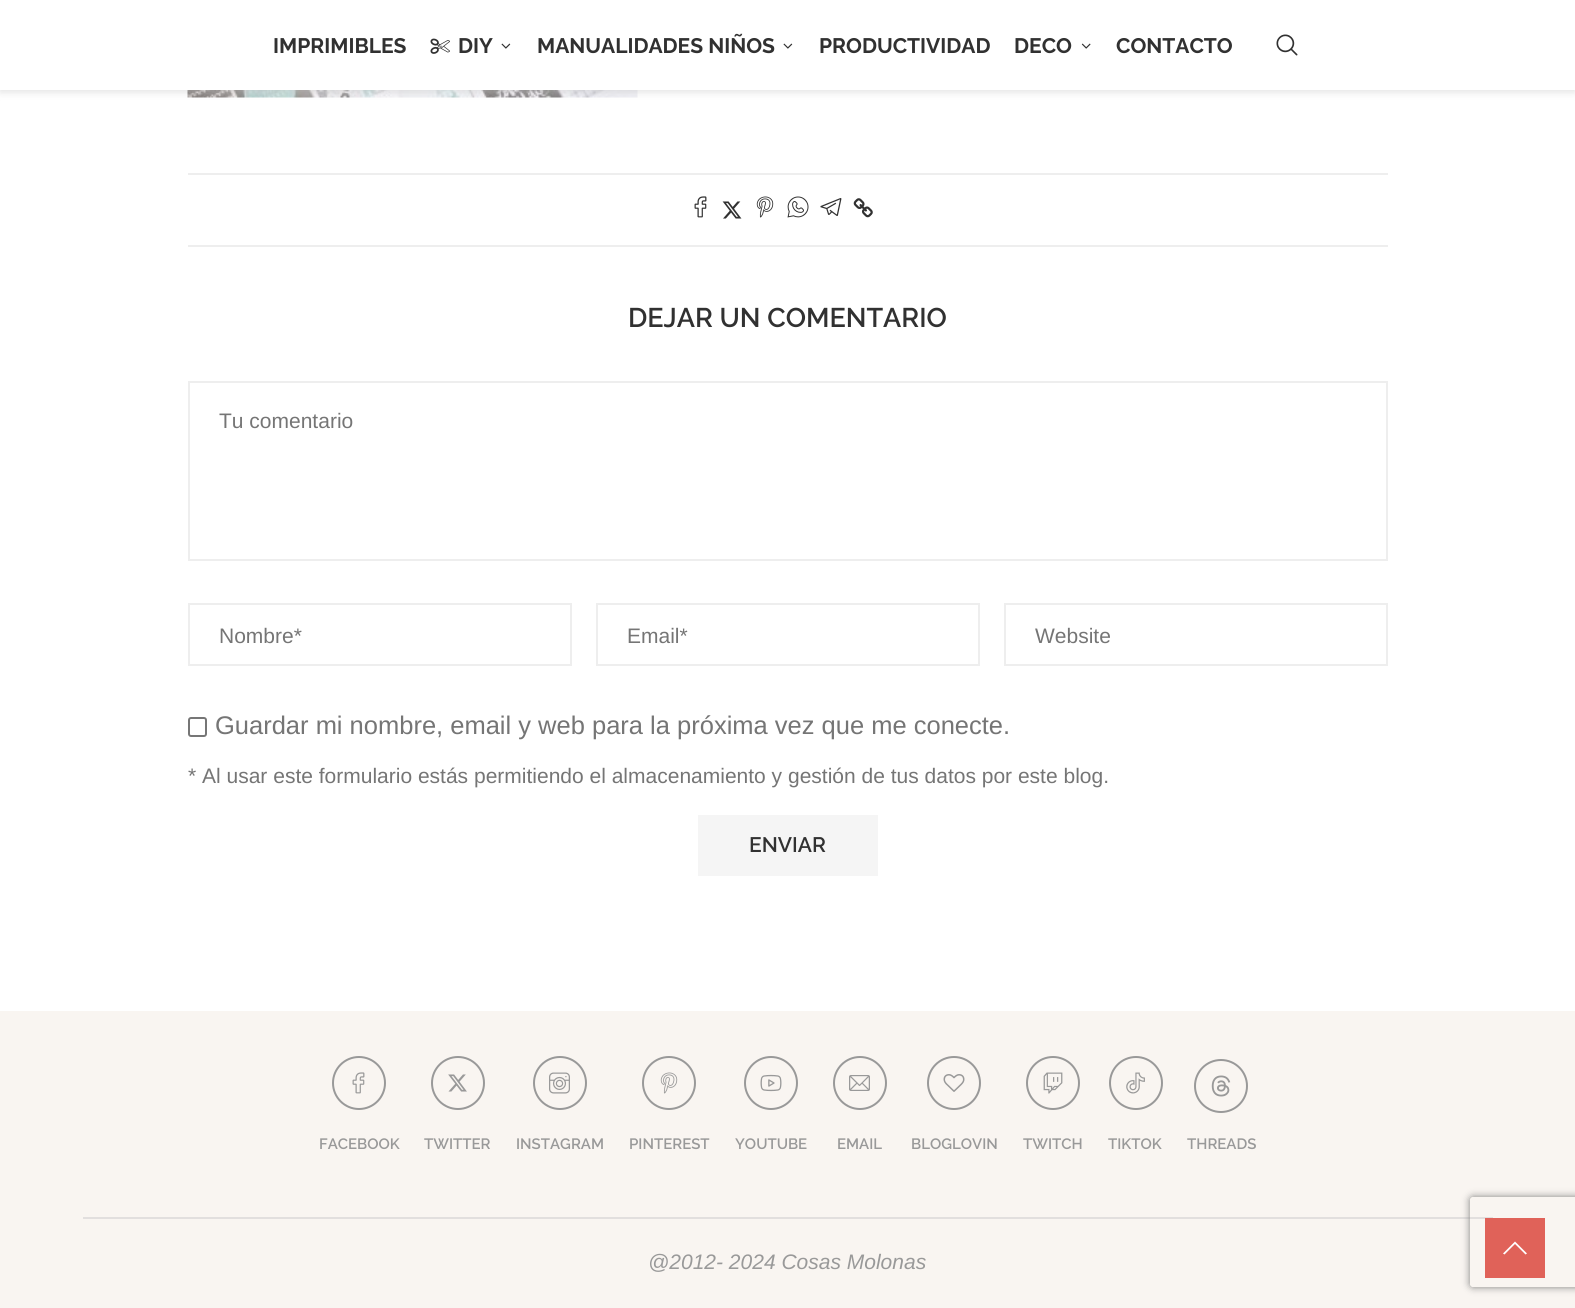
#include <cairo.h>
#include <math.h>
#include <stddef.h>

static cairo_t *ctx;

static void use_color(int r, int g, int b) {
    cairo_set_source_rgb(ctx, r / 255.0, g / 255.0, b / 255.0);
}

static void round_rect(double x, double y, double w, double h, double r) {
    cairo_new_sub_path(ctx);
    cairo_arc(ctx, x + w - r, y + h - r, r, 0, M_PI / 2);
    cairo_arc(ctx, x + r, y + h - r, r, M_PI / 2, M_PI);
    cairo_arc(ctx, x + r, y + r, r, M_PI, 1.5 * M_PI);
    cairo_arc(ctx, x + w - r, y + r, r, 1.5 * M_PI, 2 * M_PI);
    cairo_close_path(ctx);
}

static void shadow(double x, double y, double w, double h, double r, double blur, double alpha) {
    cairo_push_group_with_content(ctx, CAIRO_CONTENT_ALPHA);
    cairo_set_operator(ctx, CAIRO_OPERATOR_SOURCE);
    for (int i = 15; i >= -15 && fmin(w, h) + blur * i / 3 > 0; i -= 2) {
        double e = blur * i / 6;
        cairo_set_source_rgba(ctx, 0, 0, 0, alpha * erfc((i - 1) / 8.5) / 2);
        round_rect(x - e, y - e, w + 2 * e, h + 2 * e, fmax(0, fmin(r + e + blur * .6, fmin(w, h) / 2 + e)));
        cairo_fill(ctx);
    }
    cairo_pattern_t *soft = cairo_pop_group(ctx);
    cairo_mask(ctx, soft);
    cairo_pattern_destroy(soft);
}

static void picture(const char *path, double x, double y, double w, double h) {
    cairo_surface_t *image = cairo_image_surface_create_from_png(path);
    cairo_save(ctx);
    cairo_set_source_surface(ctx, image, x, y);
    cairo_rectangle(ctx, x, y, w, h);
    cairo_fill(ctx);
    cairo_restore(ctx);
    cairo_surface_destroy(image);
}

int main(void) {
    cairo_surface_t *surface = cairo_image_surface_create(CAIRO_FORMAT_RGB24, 1575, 1308);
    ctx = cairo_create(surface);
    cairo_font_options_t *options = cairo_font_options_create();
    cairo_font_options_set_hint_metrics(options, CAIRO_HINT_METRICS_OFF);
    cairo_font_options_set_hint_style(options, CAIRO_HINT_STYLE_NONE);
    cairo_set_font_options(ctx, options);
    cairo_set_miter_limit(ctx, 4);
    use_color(255, 255, 255);
    cairo_paint(ctx);
    picture("img5.png", 187, 90, 451, 8);
    use_color(190, 190, 190);
    shadow(0, 2, 1575, 90, 0, 4, 0.46);
    use_color(255, 255, 255);
    cairo_rectangle(ctx, 0, 0, 1575, 90);
    cairo_fill(ctx);
    cairo_select_font_face(ctx, "Raleway", CAIRO_FONT_SLANT_NORMAL, CAIRO_FONT_WEIGHT_BOLD);
    cairo_set_font_size(ctx, 21);
    use_color(49, 49, 49);
    cairo_move_to(ctx, 273, 53);
    cairo_show_text(ctx, "IMPRIMIBLES");
    picture("img1.png", 430, 38, 20, 16);
    cairo_move_to(ctx, 458, 53);
    cairo_show_text(ctx, "DIY");
    picture("img2.png", 501, 43, 10, 6);
    cairo_move_to(ctx, 537, 53);
    cairo_show_text(ctx, "MANUALIDADES NIÑOS");
    picture("img2.png", 783, 43, 10, 6);
    cairo_move_to(ctx, 819, 53);
    cairo_show_text(ctx, "PRODUCTIVIDAD");
    cairo_move_to(ctx, 1014, 53);
    cairo_show_text(ctx, "DECO");
    picture("img3.png", 1081, 43, 10, 6);
    cairo_move_to(ctx, 1116, 53);
    cairo_show_text(ctx, "CONTACTO");
    picture("img4.png", 1276, 34, 22, 22);
    use_color(238, 238, 238);
    cairo_rectangle(ctx, 188, 173, 1200, 2);
    cairo_fill(ctx);
    picture("img6.png", 694, 196, 13, 22);
    picture("img7.png", 722, 201, 20, 18);
    picture("img8.png", 756, 196, 18, 22);
    picture("img9.png", 787, 196, 22, 22);
    picture("img10.png", 820, 198, 22, 18);
    picture("img11.png", 853, 198, 20, 20);
    cairo_rectangle(ctx, 188, 245, 1200, 2);
    cairo_fill(ctx);
    cairo_select_font_face(ctx, "Raleway SemiBold", CAIRO_FONT_SLANT_NORMAL, CAIRO_FONT_WEIGHT_NORMAL);
    cairo_set_font_size(ctx, 27);
    use_color(49, 49, 49);
    cairo_move_to(ctx, 628, 327);
    cairo_show_text(ctx, "DEJAR UN COMENTARIO");
    cairo_rectangle(ctx, 189, 382, 1198, 178);
    use_color(238, 238, 238);
    cairo_stroke(ctx);
    cairo_select_font_face(ctx, "Liberation Sans", CAIRO_FONT_SLANT_NORMAL, CAIRO_FONT_WEIGHT_NORMAL);
    cairo_set_font_size(ctx, 21);
    use_color(117, 117, 117);
    cairo_move_to(ctx, 219, 428);
    cairo_show_text(ctx, "Tu comentario");
    cairo_rectangle(ctx, 189, 604, 382, 61);
    use_color(238, 238, 238);
    cairo_stroke(ctx);
    use_color(117, 117, 117);
    cairo_move_to(ctx, 219, 643);
    cairo_show_text(ctx, "Nombre*");
    cairo_rectangle(ctx, 597, 604, 382, 61);
    use_color(238, 238, 238);
    cairo_stroke(ctx);
    use_color(117, 117, 117);
    cairo_move_to(ctx, 627, 643);
    cairo_show_text(ctx, "Email*");
    cairo_rectangle(ctx, 1005, 604, 382, 61);
    use_color(238, 238, 238);
    cairo_stroke(ctx);
    use_color(117, 117, 117);
    cairo_move_to(ctx, 1035, 643);
    cairo_show_text(ctx, "Website");
    round_rect(189, 718, 17, 18, 2);
    use_color(118, 118, 118);
    cairo_stroke(ctx);
    cairo_set_font_size(ctx, 25.5);
    use_color(117, 117, 117);
    cairo_move_to(ctx, 215, 734);
    cairo_show_text(ctx, "Guardar mi nombre, email y web para la próxima vez que me conecte.");
    cairo_set_font_size(ctx, 21);
    cairo_move_to(ctx, 188, 783);
    cairo_show_text(ctx, "* Al usar este formulario estás permitiendo el almacenamiento y gestión de tus datos por este blog.");
    use_color(245, 245, 245);
    cairo_rectangle(ctx, 698, 815, 180, 61);
    cairo_fill(ctx);
    cairo_select_font_face(ctx, "Raleway SemiBold", CAIRO_FONT_SLANT_NORMAL, CAIRO_FONT_WEIGHT_NORMAL);
    use_color(49, 49, 49);
    cairo_move_to(ctx, 749, 852);
    cairo_show_text(ctx, "ENVIAR");
    use_color(249, 245, 241);
    cairo_rectangle(ctx, 0, 1011, 1575, 297);
    cairo_fill(ctx);
    use_color(226, 223, 222);
    cairo_rectangle(ctx, 83, 1217, 1410, 2);
    cairo_fill(ctx);
    cairo_arc(ctx, 359, 1083, 26, 0, 2 * M_PI);
    use_color(153, 153, 153);
    cairo_stroke(ctx);
    picture("img12.png", 352, 1072, 13, 22);
    cairo_set_font_size(ctx, 15);
    cairo_move_to(ctx, 319, 1149);
    cairo_show_text(ctx, "FACEBOOK");
    cairo_new_path(ctx);
    cairo_arc(ctx, 458, 1083, 26, 0, 2 * M_PI);
    cairo_stroke(ctx);
    picture("img13.png", 448, 1074, 19, 18);
    cairo_move_to(ctx, 424, 1149);
    cairo_show_text(ctx, "TWITTER");
    cairo_new_path(ctx);
    cairo_arc(ctx, 560, 1083, 26, 0, 2 * M_PI);
    cairo_stroke(ctx);
    picture("img14.png", 549, 1072, 21, 22);
    cairo_move_to(ctx, 516, 1149);
    cairo_show_text(ctx, "INSTAGRAM");
    cairo_new_path(ctx);
    cairo_arc(ctx, 669, 1083, 26, 0, 2 * M_PI);
    cairo_stroke(ctx);
    picture("img15.png", 660, 1072, 18, 22);
    cairo_move_to(ctx, 629, 1149);
    cairo_show_text(ctx, "PINTEREST");
    cairo_new_path(ctx);
    cairo_arc(ctx, 771, 1083, 26, 0, 2 * M_PI);
    cairo_stroke(ctx);
    picture("img16.png", 760, 1074, 22, 18);
    cairo_move_to(ctx, 735, 1149);
    cairo_show_text(ctx, "YOUTUBE");
    cairo_new_path(ctx);
    cairo_arc(ctx, 860, 1083, 26, 0, 2 * M_PI);
    cairo_stroke(ctx);
    picture("img17.png", 849, 1075, 21, 16);
    cairo_move_to(ctx, 837, 1149);
    cairo_show_text(ctx, "EMAIL");
    cairo_new_path(ctx);
    cairo_arc(ctx, 954, 1083, 26, 0, 2 * M_PI);
    cairo_stroke(ctx);
    picture("img18.png", 943, 1074, 22, 18);
    cairo_move_to(ctx, 911, 1149);
    cairo_show_text(ctx, "BLOGLOVIN");
    cairo_new_path(ctx);
    cairo_arc(ctx, 1053, 1083, 26, 0, 2 * M_PI);
    cairo_stroke(ctx);
    picture("img19.png", 1043, 1072, 20, 22);
    cairo_move_to(ctx, 1023, 1149);
    cairo_show_text(ctx, "TWITCH");
    cairo_new_path(ctx);
    cairo_arc(ctx, 1136, 1083, 26, 0, 2 * M_PI);
    cairo_stroke(ctx);
    picture("img20.png", 1126, 1072, 19, 22);
    cairo_move_to(ctx, 1108, 1149);
    cairo_show_text(ctx, "TIKTOK");
    cairo_new_path(ctx);
    cairo_arc(ctx, 1221, 1086, 26, 0, 2 * M_PI);
    cairo_stroke(ctx);
    picture("img21.png", 1211, 1075, 20, 22);
    cairo_move_to(ctx, 1187, 1149);
    cairo_show_text(ctx, "THREADS");
    cairo_select_font_face(ctx, "Liberation Sans", CAIRO_FONT_SLANT_ITALIC, CAIRO_FONT_WEIGHT_NORMAL);
    cairo_set_font_size(ctx, 21);
    cairo_move_to(ctx, 648, 1269);
    cairo_show_text(ctx, "@2012- 2024 Cosas Molonas");
    cairo_save(ctx);
    cairo_set_fill_rule(ctx, CAIRO_FILL_RULE_EVEN_ODD);
    cairo_new_path(ctx);
    cairo_move_to(ctx, 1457, 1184);
    cairo_line_to(ctx, 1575, 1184);
    cairo_line_to(ctx, 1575, 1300);
    cairo_line_to(ctx, 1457, 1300);
    cairo_close_path(ctx);
    cairo_move_to(ctx, 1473, 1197);
    cairo_line_to(ctx, 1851, 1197);
    cairo_curve_to(ctx, 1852.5, 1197, 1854, 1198.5, 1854, 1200);
    cairo_line_to(ctx, 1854, 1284);
    cairo_curve_to(ctx, 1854, 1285.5, 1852.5, 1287, 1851, 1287);
    cairo_line_to(ctx, 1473, 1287);
    cairo_curve_to(ctx, 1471.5, 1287, 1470, 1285.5, 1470, 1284);
    cairo_line_to(ctx, 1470, 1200);
    cairo_curve_to(ctx, 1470, 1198.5, 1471.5, 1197, 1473, 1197);
    cairo_close_path(ctx);
    cairo_clip(ctx);
    use_color(128, 128, 128);
    shadow(1470, 1197, 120, 90, 3, 4, 1);
    cairo_restore(ctx);
    use_color(224, 98, 89);
    cairo_rectangle(ctx, 1485, 1218, 60, 60);
    cairo_fill(ctx);
    use_color(255, 255, 255);
    cairo_new_path(ctx);
    cairo_move_to(ctx, 1515, 1241.5);
    cairo_line_to(ctx, 1503, 1253.5);
    cairo_line_to(ctx, 1504.5, 1254.5);
    cairo_line_to(ctx, 1515, 1244);
    cairo_line_to(ctx, 1525.5, 1254.5);
    cairo_line_to(ctx, 1527, 1253.5);
    cairo_close_path(ctx);
    cairo_fill(ctx);
    cairo_surface_write_to_png(surface, "result.png");
    cairo_font_options_destroy(options);
    cairo_destroy(ctx);
    cairo_surface_destroy(surface);
    return 0;
}
